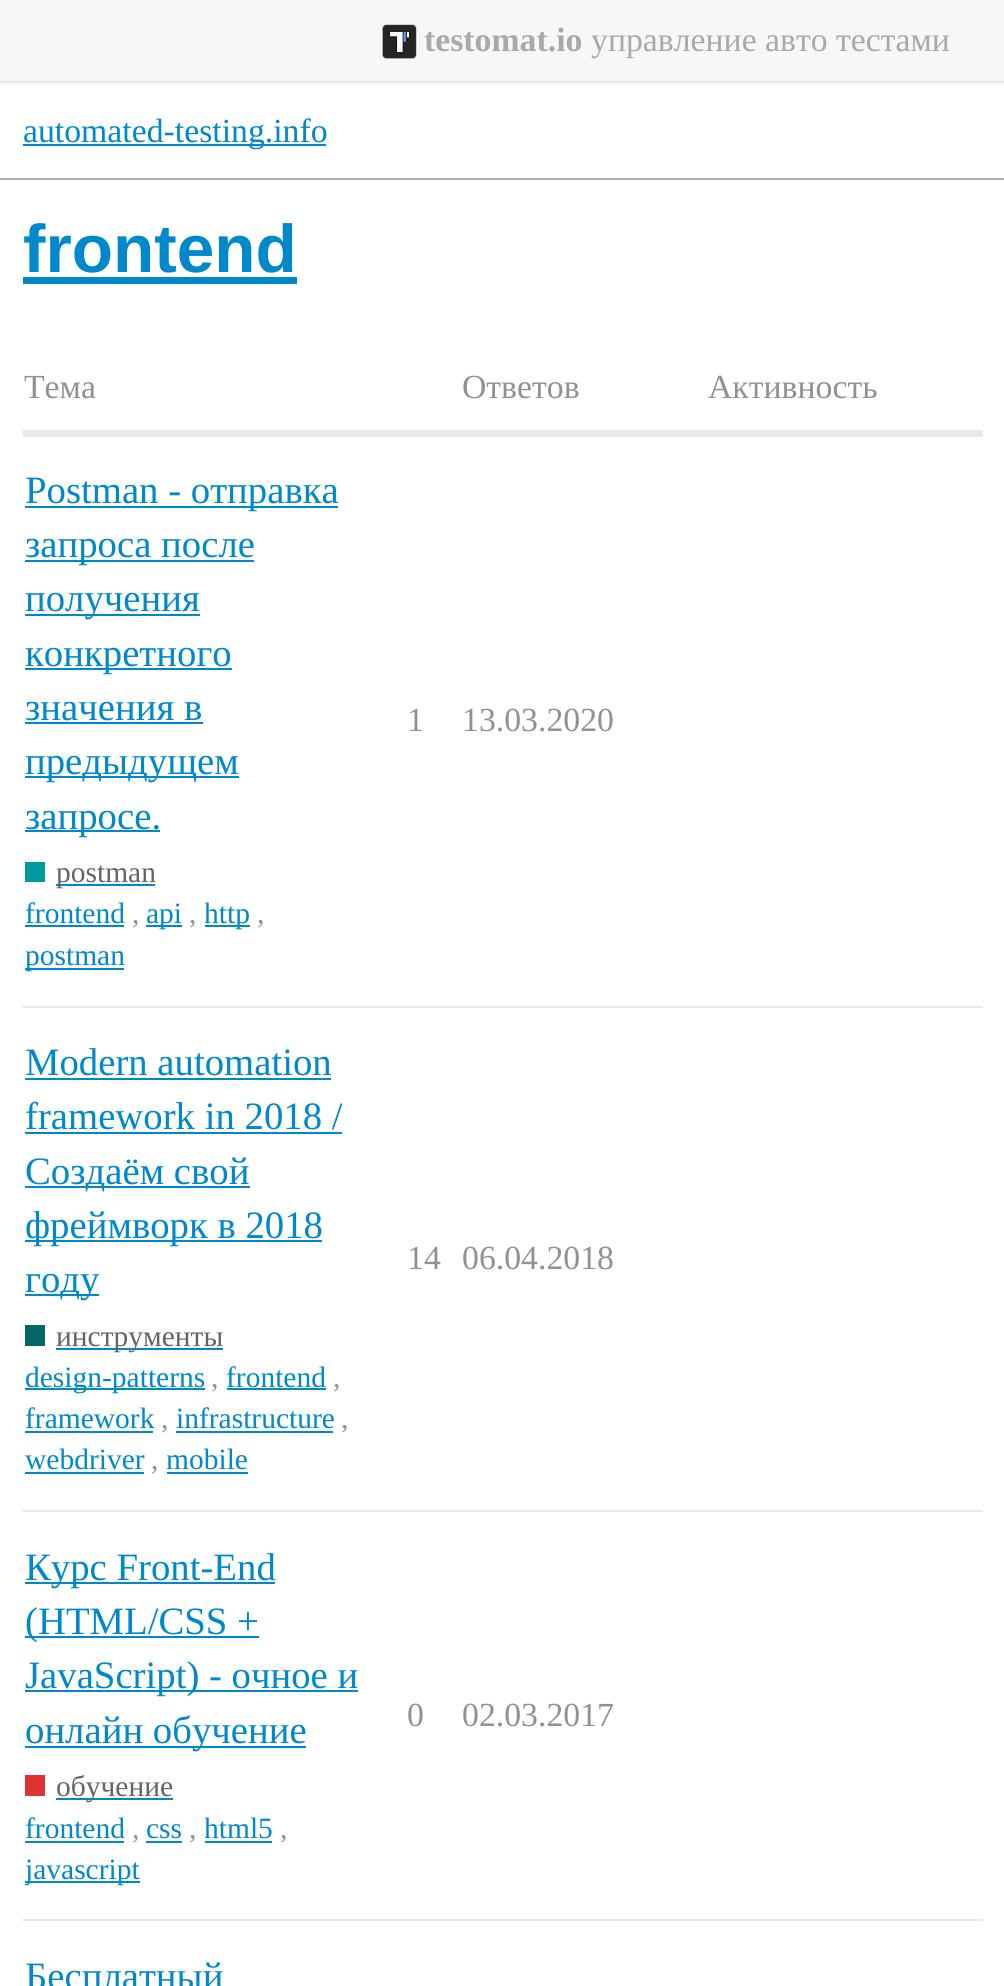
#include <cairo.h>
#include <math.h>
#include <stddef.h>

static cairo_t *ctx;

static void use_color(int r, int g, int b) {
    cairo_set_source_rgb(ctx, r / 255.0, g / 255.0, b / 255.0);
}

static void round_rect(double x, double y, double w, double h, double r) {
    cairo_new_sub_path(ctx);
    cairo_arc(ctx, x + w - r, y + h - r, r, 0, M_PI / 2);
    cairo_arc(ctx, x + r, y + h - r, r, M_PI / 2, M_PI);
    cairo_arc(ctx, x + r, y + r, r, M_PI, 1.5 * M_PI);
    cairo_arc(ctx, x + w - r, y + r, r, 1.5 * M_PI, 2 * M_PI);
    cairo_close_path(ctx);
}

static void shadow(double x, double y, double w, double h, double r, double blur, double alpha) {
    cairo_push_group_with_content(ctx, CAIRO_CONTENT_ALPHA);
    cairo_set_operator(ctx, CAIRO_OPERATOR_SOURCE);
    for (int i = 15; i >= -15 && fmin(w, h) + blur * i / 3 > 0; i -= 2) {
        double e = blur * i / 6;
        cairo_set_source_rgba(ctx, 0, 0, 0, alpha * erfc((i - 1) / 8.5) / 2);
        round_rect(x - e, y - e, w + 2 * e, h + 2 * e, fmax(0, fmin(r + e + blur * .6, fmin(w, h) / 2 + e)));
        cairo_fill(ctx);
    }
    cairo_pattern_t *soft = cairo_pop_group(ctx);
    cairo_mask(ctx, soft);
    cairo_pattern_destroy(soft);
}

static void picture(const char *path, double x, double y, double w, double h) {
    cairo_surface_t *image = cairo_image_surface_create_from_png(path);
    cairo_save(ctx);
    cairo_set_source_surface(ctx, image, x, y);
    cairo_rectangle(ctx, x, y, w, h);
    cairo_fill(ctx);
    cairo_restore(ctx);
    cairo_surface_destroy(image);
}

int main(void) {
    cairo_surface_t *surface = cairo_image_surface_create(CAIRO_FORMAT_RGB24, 1004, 1986);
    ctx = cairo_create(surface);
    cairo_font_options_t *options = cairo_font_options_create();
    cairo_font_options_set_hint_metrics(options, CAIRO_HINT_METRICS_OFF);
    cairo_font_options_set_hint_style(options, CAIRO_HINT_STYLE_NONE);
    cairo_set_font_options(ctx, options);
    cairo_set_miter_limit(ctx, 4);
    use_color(255, 255, 255);
    cairo_paint(ctx);
    use_color(0, 0, 0);
    shadow(0, 0, 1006, 81, 0, 2, 0.25);
    use_color(247, 247, 247);
    cairo_rectangle(ctx, 0, 0, 1004, 81);
    cairo_fill(ctx);
    picture("img1.png", 382, 24, 35, 35);
    cairo_select_font_face(ctx, "Liberation Serif", CAIRO_FONT_SLANT_NORMAL, CAIRO_FONT_WEIGHT_BOLD);
    cairo_set_font_size(ctx, 33.75);
    use_color(169, 169, 169);
    cairo_move_to(ctx, 424, 51);
    cairo_show_text(ctx, "testomat.io");
    cairo_select_font_face(ctx, "Liberation Serif", CAIRO_FONT_SLANT_NORMAL, CAIRO_FONT_WEIGHT_NORMAL);
    cairo_move_to(ctx, 591, 51);
    cairo_show_text(ctx, "управление авто тестами");
    use_color(175, 175, 175);
    cairo_rectangle(ctx, 0, 178, 1004, 2);
    cairo_fill(ctx);
    use_color(0, 136, 204);
    cairo_rectangle(ctx, 23, 144, 303, 2);
    cairo_fill(ctx);
    cairo_move_to(ctx, 23, 142);
    cairo_show_text(ctx, "automated-testing.info");
    cairo_select_font_face(ctx, "Liberation Sans", CAIRO_FONT_SLANT_NORMAL, CAIRO_FONT_WEIGHT_BOLD);
    cairo_set_font_size(ctx, 67.5);
    cairo_move_to(ctx, 23, 272);
    cairo_show_text(ctx, "frontend");
    cairo_rectangle(ctx, 23, 277, 274, 7);
    cairo_fill(ctx);
    cairo_select_font_face(ctx, "Liberation Serif", CAIRO_FONT_SLANT_NORMAL, CAIRO_FONT_WEIGHT_NORMAL);
    cairo_set_font_size(ctx, 33.75);
    use_color(145, 145, 145);
    cairo_move_to(ctx, 24, 398);
    cairo_show_text(ctx, "Тема");
    cairo_move_to(ctx, 462, 398);
    cairo_show_text(ctx, "Ответов");
    cairo_move_to(ctx, 708, 398);
    cairo_show_text(ctx, "Активность");
    use_color(233, 233, 233);
    cairo_rectangle(ctx, 23, 430, 960, 7);
    cairo_fill(ctx);
    cairo_rectangle(ctx, 23, 1006, 960, 2);
    cairo_fill(ctx);
    use_color(0, 136, 204);
    cairo_rectangle(ctx, 25, 506, 313, 2);
    cairo_fill(ctx);
    cairo_set_font_size(ctx, 38.75);
    cairo_move_to(ctx, 25, 503);
    cairo_show_text(ctx, "Postman - отправка");
    cairo_rectangle(ctx, 25, 560, 229, 2);
    cairo_fill(ctx);
    cairo_move_to(ctx, 25, 557);
    cairo_show_text(ctx, "запроса после");
    cairo_rectangle(ctx, 25, 614, 175, 2);
    cairo_fill(ctx);
    cairo_move_to(ctx, 25, 611);
    cairo_show_text(ctx, "получения");
    cairo_rectangle(ctx, 25, 668, 207, 2);
    cairo_fill(ctx);
    cairo_move_to(ctx, 25, 666);
    cairo_show_text(ctx, "конкретного");
    cairo_move_to(ctx, 25, 720);
    cairo_show_text(ctx, "значения в");
    cairo_rectangle(ctx, 25, 722, 178, 2);
    cairo_fill(ctx);
    cairo_rectangle(ctx, 25, 776, 214, 2);
    cairo_fill(ctx);
    cairo_move_to(ctx, 25, 774);
    cairo_show_text(ctx, "предыдущем");
    cairo_rectangle(ctx, 25, 830, 135, 2);
    cairo_fill(ctx);
    cairo_move_to(ctx, 25, 829);
    cairo_show_text(ctx, "запросе.");
    use_color(0, 155, 158);
    cairo_rectangle(ctx, 25, 862, 20, 20);
    cairo_fill(ctx);
    use_color(0, 136, 204);
    cairo_rectangle(ctx, 56, 884, 99, 2);
    cairo_fill(ctx);
    cairo_set_font_size(ctx, 29.5);
    use_color(100, 100, 100);
    cairo_move_to(ctx, 56, 882);
    cairo_show_text(ctx, "postman");
    use_color(0, 136, 204);
    cairo_move_to(ctx, 25, 923);
    cairo_show_text(ctx, "frontend");
    cairo_rectangle(ctx, 25, 925, 99, 2);
    cairo_fill(ctx);
    use_color(145, 145, 145);
    cairo_move_to(ctx, 132, 923);
    cairo_show_text(ctx, ",");
    use_color(0, 136, 204);
    cairo_rectangle(ctx, 146, 925, 36, 2);
    cairo_fill(ctx);
    cairo_move_to(ctx, 146, 923);
    cairo_show_text(ctx, "api");
    use_color(145, 145, 145);
    cairo_move_to(ctx, 189, 923);
    cairo_show_text(ctx, ",");
    use_color(0, 136, 204);
    cairo_rectangle(ctx, 205, 925, 45, 2);
    cairo_fill(ctx);
    cairo_save(ctx);
    cairo_rectangle(ctx, 205, 893, 45, 43);
    cairo_clip(ctx);
    cairo_move_to(ctx, 204, 923);
    cairo_show_text(ctx, "http");
    cairo_restore(ctx);
    use_color(145, 145, 145);
    cairo_move_to(ctx, 257, 923);
    cairo_show_text(ctx, ",");
    use_color(0, 136, 204);
    cairo_rectangle(ctx, 25, 968, 99, 2);
    cairo_fill(ctx);
    cairo_move_to(ctx, 25, 965);
    cairo_show_text(ctx, "postman");
    cairo_set_font_size(ctx, 33.75);
    use_color(145, 145, 145);
    cairo_move_to(ctx, 407, 731);
    cairo_show_text(ctx, "1");
    cairo_move_to(ctx, 462, 731);
    cairo_show_text(ctx, "13.03.2020");
    use_color(233, 233, 233);
    cairo_rectangle(ctx, 23, 1510, 960, 2);
    cairo_fill(ctx);
    cairo_set_font_size(ctx, 38.75);
    use_color(0, 136, 204);
    cairo_move_to(ctx, 25, 1075);
    cairo_show_text(ctx, "Modern automation");
    cairo_rectangle(ctx, 25, 1078, 306, 2);
    cairo_fill(ctx);
    cairo_move_to(ctx, 25, 1129);
    cairo_show_text(ctx, "framework in 2018 /");
    cairo_rectangle(ctx, 25, 1132, 317, 2);
    cairo_fill(ctx);
    cairo_rectangle(ctx, 25, 1186, 225, 2);
    cairo_fill(ctx);
    cairo_move_to(ctx, 25, 1184);
    cairo_show_text(ctx, "Создаём свой");
    cairo_rectangle(ctx, 25, 1240, 297, 2);
    cairo_fill(ctx);
    cairo_move_to(ctx, 25, 1238);
    cairo_show_text(ctx, "фреймворк в 2018");
    cairo_rectangle(ctx, 25, 1294, 74, 2);
    cairo_fill(ctx);
    cairo_move_to(ctx, 25, 1292);
    cairo_show_text(ctx, "году");
    use_color(0, 102, 102);
    cairo_rectangle(ctx, 25, 1325, 20, 21);
    cairo_fill(ctx);
    use_color(0, 136, 204);
    cairo_rectangle(ctx, 56, 1348, 167, 2);
    cairo_fill(ctx);
    cairo_set_font_size(ctx, 29.5);
    use_color(100, 100, 100);
    cairo_move_to(ctx, 56, 1346);
    cairo_show_text(ctx, "инструменты");
    use_color(0, 136, 204);
    cairo_rectangle(ctx, 25, 1388, 180, 2);
    cairo_fill(ctx);
    cairo_move_to(ctx, 25, 1387);
    cairo_show_text(ctx, "design-patterns");
    use_color(145, 145, 145);
    cairo_move_to(ctx, 211, 1387);
    cairo_show_text(ctx, ",");
    use_color(0, 136, 204);
    cairo_move_to(ctx, 226, 1387);
    cairo_show_text(ctx, "frontend");
    cairo_rectangle(ctx, 227, 1388, 99, 2);
    cairo_fill(ctx);
    use_color(145, 145, 145);
    cairo_move_to(ctx, 333, 1387);
    cairo_show_text(ctx, ",");
    use_color(0, 136, 204);
    cairo_move_to(ctx, 25, 1428);
    cairo_show_text(ctx, "framework");
    cairo_rectangle(ctx, 25, 1431, 128, 2);
    cairo_fill(ctx);
    use_color(145, 145, 145);
    cairo_move_to(ctx, 161, 1428);
    cairo_show_text(ctx, ",");
    use_color(0, 136, 204);
    cairo_move_to(ctx, 176, 1428);
    cairo_show_text(ctx, "infrastructure");
    cairo_rectangle(ctx, 176, 1431, 157, 2);
    cairo_fill(ctx);
    use_color(145, 145, 145);
    cairo_move_to(ctx, 341, 1428);
    cairo_show_text(ctx, ",");
    use_color(0, 136, 204);
    cairo_move_to(ctx, 25, 1469);
    cairo_show_text(ctx, "webdriver");
    cairo_rectangle(ctx, 25, 1472, 119, 2);
    cairo_fill(ctx);
    use_color(145, 145, 145);
    cairo_move_to(ctx, 151, 1469);
    cairo_show_text(ctx, ",");
    cairo_save(ctx);
    cairo_rectangle(ctx, 167, 1440, 81, 41);
    cairo_clip(ctx);
    use_color(0, 136, 204);
    cairo_move_to(ctx, 166, 1469);
    cairo_show_text(ctx, "mobile");
    cairo_restore(ctx);
    use_color(0, 136, 204);
    cairo_rectangle(ctx, 167, 1472, 81, 2);
    cairo_fill(ctx);
    cairo_set_font_size(ctx, 33.75);
    use_color(145, 145, 145);
    cairo_move_to(ctx, 407, 1269);
    cairo_show_text(ctx, "14");
    cairo_move_to(ctx, 462, 1269);
    cairo_show_text(ctx, "06.04.2018");
    use_color(233, 233, 233);
    cairo_rectangle(ctx, 23, 1919, 960, 2);
    cairo_fill(ctx);
    use_color(0, 136, 204);
    cairo_rectangle(ctx, 25, 1582, 250, 2);
    cairo_fill(ctx);
    cairo_set_font_size(ctx, 38.75);
    cairo_move_to(ctx, 25, 1580);
    cairo_show_text(ctx, "Курс Front-End");
    cairo_rectangle(ctx, 25, 1636, 234, 2);
    cairo_fill(ctx);
    cairo_move_to(ctx, 25, 1634);
    cairo_show_text(ctx, "(HTML/CSS +");
    cairo_rectangle(ctx, 25, 1690, 333, 2);
    cairo_fill(ctx);
    cairo_move_to(ctx, 25, 1688);
    cairo_show_text(ctx, "JavaScript) - очное и");
    cairo_rectangle(ctx, 25, 1746, 281, 2);
    cairo_fill(ctx);
    cairo_move_to(ctx, 25, 1743);
    cairo_show_text(ctx, "онлайн обучение");
    use_color(221, 51, 51);
    cairo_rectangle(ctx, 25, 1775, 20, 21);
    cairo_fill(ctx);
    use_color(0, 136, 204);
    cairo_rectangle(ctx, 56, 1798, 117, 2);
    cairo_fill(ctx);
    cairo_set_font_size(ctx, 29.5);
    use_color(100, 100, 100);
    cairo_move_to(ctx, 56, 1796);
    cairo_show_text(ctx, "обучение");
    use_color(0, 136, 204);
    cairo_move_to(ctx, 25, 1838);
    cairo_show_text(ctx, "frontend");
    cairo_rectangle(ctx, 25, 1841, 99, 2);
    cairo_fill(ctx);
    use_color(145, 145, 145);
    cairo_move_to(ctx, 132, 1838);
    cairo_show_text(ctx, ",");
    use_color(0, 136, 204);
    cairo_move_to(ctx, 146, 1838);
    cairo_show_text(ctx, "css");
    cairo_rectangle(ctx, 146, 1841, 36, 2);
    cairo_fill(ctx);
    use_color(145, 145, 145);
    cairo_move_to(ctx, 189, 1838);
    cairo_show_text(ctx, ",");
    cairo_save(ctx);
    cairo_rectangle(ctx, 205, 1809, 67, 41);
    cairo_clip(ctx);
    use_color(0, 136, 204);
    cairo_move_to(ctx, 204, 1838);
    cairo_show_text(ctx, "html5");
    cairo_restore(ctx);
    use_color(0, 136, 204);
    cairo_rectangle(ctx, 205, 1841, 67, 2);
    cairo_fill(ctx);
    use_color(145, 145, 145);
    cairo_move_to(ctx, 280, 1838);
    cairo_show_text(ctx, ",");
    use_color(0, 136, 204);
    cairo_rectangle(ctx, 25, 1881, 115, 2);
    cairo_fill(ctx);
    cairo_save(ctx);
    cairo_rectangle(ctx, 25, 1850, 115, 40);
    cairo_clip(ctx);
    cairo_move_to(ctx, 25, 1879);
    cairo_show_text(ctx, "javascript");
    cairo_restore(ctx);
    cairo_set_font_size(ctx, 33.75);
    use_color(145, 145, 145);
    cairo_move_to(ctx, 407, 1726);
    cairo_show_text(ctx, "0");
    cairo_move_to(ctx, 462, 1726);
    cairo_show_text(ctx, "02.03.2017");
    cairo_set_font_size(ctx, 38.75);
    use_color(0, 136, 204);
    cairo_move_to(ctx, 25, 1989);
    cairo_show_text(ctx, "Бесплатный");
    cairo_surface_write_to_png(surface, "result.png");
    cairo_font_options_destroy(options);
    cairo_destroy(ctx);
    cairo_surface_destroy(surface);
    return 0;
}
